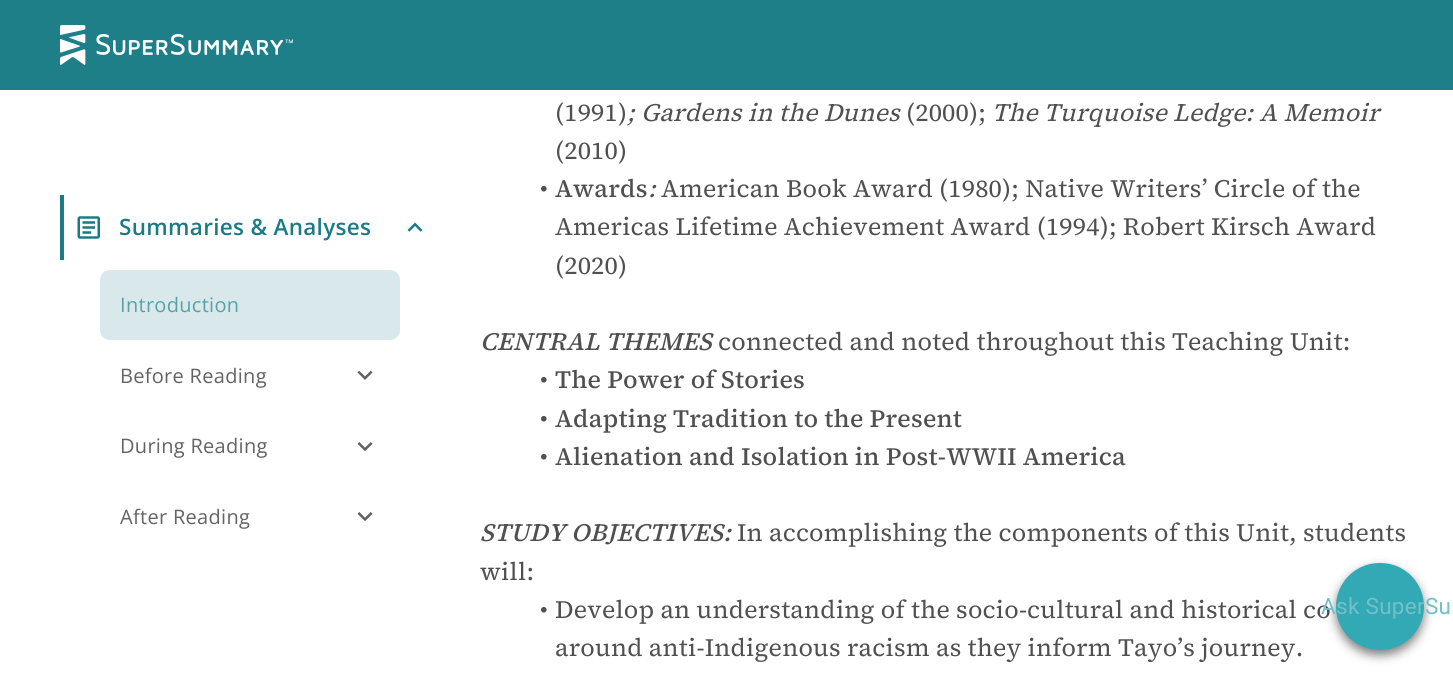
#include <cairo.h>
#include <math.h>
#include <stddef.h>

static cairo_t *ctx;

static void use_color(int r, int g, int b) {
    cairo_set_source_rgb(ctx, r / 255.0, g / 255.0, b / 255.0);
}

static void spaced_text(double x, double y, const char *s, double letter, double word) {
    cairo_move_to(ctx, x, y);
    while (*s) {
        char ch[5] = {0};
        int n = 0;
        do ch[n++] = *s++; while ((*s & 0xC0) == 0x80);
        cairo_show_text(ctx, ch);
        cairo_rel_move_to(ctx, letter + word * (*ch == ' '), 0);
    }
}

static void round_rect(double x, double y, double w, double h, double r) {
    cairo_new_sub_path(ctx);
    cairo_arc(ctx, x + w - r, y + h - r, r, 0, M_PI / 2);
    cairo_arc(ctx, x + r, y + h - r, r, M_PI / 2, M_PI);
    cairo_arc(ctx, x + r, y + r, r, M_PI, 1.5 * M_PI);
    cairo_arc(ctx, x + w - r, y + r, r, 1.5 * M_PI, 2 * M_PI);
    cairo_close_path(ctx);
}

static void shadow(double x, double y, double w, double h, double r, double blur, double alpha) {
    cairo_push_group_with_content(ctx, CAIRO_CONTENT_ALPHA);
    cairo_set_operator(ctx, CAIRO_OPERATOR_SOURCE);
    for (int i = 15; i >= -15 && fmin(w, h) + blur * i / 3 > 0; i -= 2) {
        double e = blur * i / 6;
        cairo_set_source_rgba(ctx, 0, 0, 0, alpha * erfc((i - 1) / 8.5) / 2);
        round_rect(x - e, y - e, w + 2 * e, h + 2 * e, fmax(0, fmin(r + e + blur * .6, fmin(w, h) / 2 + e)));
        cairo_fill(ctx);
    }
    cairo_pattern_t *soft = cairo_pop_group(ctx);
    cairo_mask(ctx, soft);
    cairo_pattern_destroy(soft);
}

static void picture(const char *path, double x, double y, double w, double h) {
    cairo_surface_t *image = cairo_image_surface_create_from_png(path);
    cairo_save(ctx);
    cairo_set_source_surface(ctx, image, x, y);
    cairo_rectangle(ctx, x, y, w, h);
    cairo_fill(ctx);
    cairo_restore(ctx);
    cairo_surface_destroy(image);
}

int main(void) {
    cairo_surface_t *surface = cairo_image_surface_create(CAIRO_FORMAT_RGB24, 1453, 680);
    ctx = cairo_create(surface);
    cairo_font_options_t *options = cairo_font_options_create();
    cairo_font_options_set_hint_metrics(options, CAIRO_HINT_METRICS_OFF);
    cairo_font_options_set_hint_style(options, CAIRO_HINT_STYLE_NONE);
    cairo_set_font_options(ctx, options);
    cairo_set_miter_limit(ctx, 4);
    use_color(255, 255, 255);
    cairo_paint(ctx);
    use_color(31, 127, 137);
    cairo_rectangle(ctx, 0, 0, 1453, 90);
    cairo_fill(ctx);
    picture("img1.png", 60, 25, 233, 40);
    use_color(26, 123, 135);
    cairo_rectangle(ctx, 60, 195, 4, 65);
    cairo_fill(ctx);
    picture("img2.png", 77, 216, 23, 23);
    cairo_select_font_face(ctx, "Open Sans SemiBold", CAIRO_FONT_SLANT_NORMAL, CAIRO_FONT_WEIGHT_NORMAL);
    cairo_set_font_size(ctx, 22.5);
    spaced_text(119, 235, "Summaries & Analyses", 0.3, 0);
    picture("img3.png", 407, 222, 16, 10);
    use_color(217, 233, 235);
    round_rect(100, 270, 300, 70, 10);
    cairo_fill(ctx);
    cairo_select_font_face(ctx, "Open Sans", CAIRO_FONT_SLANT_NORMAL, CAIRO_FONT_WEIGHT_NORMAL);
    cairo_set_font_size(ctx, 20);
    use_color(90, 160, 169);
    spaced_text(120, 312, "Introduction", 0.3, 0);
    use_color(100, 100, 100);
    spaced_text(120, 383, "Before Reading", 0.3, 0);
    picture("img4.png", 357, 370, 16, 10);
    spaced_text(120, 453, "During Reading", 0.3, 0);
    picture("img5.png", 357, 442, 16, 10);
    spaced_text(120, 524, "After Reading", 0.3, 0);
    picture("img5.png", 357, 512, 16, 10);
    cairo_select_font_face(ctx, "Source Serif 4", CAIRO_FONT_SLANT_NORMAL, CAIRO_FONT_WEIGHT_NORMAL);
    cairo_set_font_size(ctx, 25);
    use_color(80, 80, 80);
    spaced_text(555, 121, "(1991)", 0.2, 0);
    cairo_select_font_face(ctx, "Source Serif 4", CAIRO_FONT_SLANT_ITALIC, CAIRO_FONT_WEIGHT_NORMAL);
    spaced_text(627, 121, "; Gardens in the Dunes", 0.2, 0);
    cairo_select_font_face(ctx, "Source Serif 4", CAIRO_FONT_SLANT_NORMAL, CAIRO_FONT_WEIGHT_NORMAL);
    spaced_text(906, 121, "(2000);", 0.2, 0);
    cairo_select_font_face(ctx, "Source Serif 4", CAIRO_FONT_SLANT_ITALIC, CAIRO_FONT_WEIGHT_NORMAL);
    spaced_text(992, 121, "The Turquoise Ledge: A Memoir", 0.2, 0);
    cairo_select_font_face(ctx, "Source Serif 4", CAIRO_FONT_SLANT_NORMAL, CAIRO_FONT_WEIGHT_NORMAL);
    spaced_text(555, 159, "(2010)", 0.2, 0);
    spaced_text(540, 197, "•", 0.2, 0);
    cairo_select_font_face(ctx, "Source Serif 4 Medium", CAIRO_FONT_SLANT_NORMAL, CAIRO_FONT_WEIGHT_NORMAL);
    spaced_text(555, 197, "Awards", 0.2, 0);
    cairo_select_font_face(ctx, "Source Serif 4", CAIRO_FONT_SLANT_ITALIC, CAIRO_FONT_WEIGHT_NORMAL);
    spaced_text(648, 197, ":", 0.2, 0);
    cairo_select_font_face(ctx, "Source Serif 4", CAIRO_FONT_SLANT_NORMAL, CAIRO_FONT_WEIGHT_NORMAL);
    spaced_text(661, 197, "American Book Award (1980); Native Writers’ Circle of the", 0.2, 0);
    spaced_text(555, 235, "Americas Lifetime Achievement Award (1994); Robert Kirsch Award", 0.2, 0);
    spaced_text(555, 274, "(2020)", 0.2, 0);
    cairo_select_font_face(ctx, "Source Serif 4 Medium", CAIRO_FONT_SLANT_ITALIC, CAIRO_FONT_WEIGHT_NORMAL);
    spaced_text(480, 350, "CENTRAL THEMES", 0.2, 0);
    cairo_select_font_face(ctx, "Source Serif 4", CAIRO_FONT_SLANT_NORMAL, CAIRO_FONT_WEIGHT_NORMAL);
    spaced_text(718, 350, "connected and noted throughout this Teaching Unit:", 0.2, 0);
    spaced_text(540, 388, "•", 0.2, 0);
    cairo_select_font_face(ctx, "Source Serif 4 Medium", CAIRO_FONT_SLANT_NORMAL, CAIRO_FONT_WEIGHT_NORMAL);
    spaced_text(555, 388, "The Power of Stories", 0.2, 0);
    cairo_select_font_face(ctx, "Source Serif 4", CAIRO_FONT_SLANT_NORMAL, CAIRO_FONT_WEIGHT_NORMAL);
    spaced_text(540, 427, "•", 0.2, 0);
    cairo_select_font_face(ctx, "Source Serif 4 Medium", CAIRO_FONT_SLANT_NORMAL, CAIRO_FONT_WEIGHT_NORMAL);
    spaced_text(555, 427, "Adapting Tradition to the Present", 0.2, 0);
    cairo_select_font_face(ctx, "Source Serif 4", CAIRO_FONT_SLANT_NORMAL, CAIRO_FONT_WEIGHT_NORMAL);
    spaced_text(540, 465, "•", 0.2, 0);
    cairo_select_font_face(ctx, "Source Serif 4 Medium", CAIRO_FONT_SLANT_NORMAL, CAIRO_FONT_WEIGHT_NORMAL);
    spaced_text(555, 465, "Alienation and Isolation in Post-WWII America", 0.2, 0);
    cairo_select_font_face(ctx, "Source Serif 4 Medium", CAIRO_FONT_SLANT_ITALIC, CAIRO_FONT_WEIGHT_NORMAL);
    spaced_text(480, 541, "STUDY OBJECTIVES:", 0.2, 0);
    cairo_select_font_face(ctx, "Source Serif 4", CAIRO_FONT_SLANT_NORMAL, CAIRO_FONT_WEIGHT_NORMAL);
    spaced_text(737, 541, "In accomplishing the components of this Unit, students", 0.2, 0);
    spaced_text(480, 580, "will:", 0.2, 0);
    spaced_text(540, 618, "•", 0.2, 0);
    spaced_text(555, 618, "Develop an understanding of the socio-cultural and historical co", 0.2, 0);
    spaced_text(555, 656, "around anti-Indigenous racism as they inform Tayo’s journey.", 0.2, 0);
    use_color(0, 0, 0);
    shadow(1336, 568, 88, 87, 43.5, 5, 0.5);
    use_color(51, 169, 181);
    round_rect(1336, 563, 88, 87, 43.5);
    cairo_fill(ctx);
    cairo_select_font_face(ctx, "Roboto", CAIRO_FONT_SLANT_NORMAL, CAIRO_FONT_WEIGHT_NORMAL);
    cairo_set_font_size(ctx, 22.5);
    use_color(114, 192, 200);
    spaced_text(1321, 614, "Ask SuperSu", 0.3, 0);
    cairo_surface_write_to_png(surface, "result.png");
    cairo_font_options_destroy(options);
    cairo_destroy(ctx);
    cairo_surface_destroy(surface);
    return 0;
}
